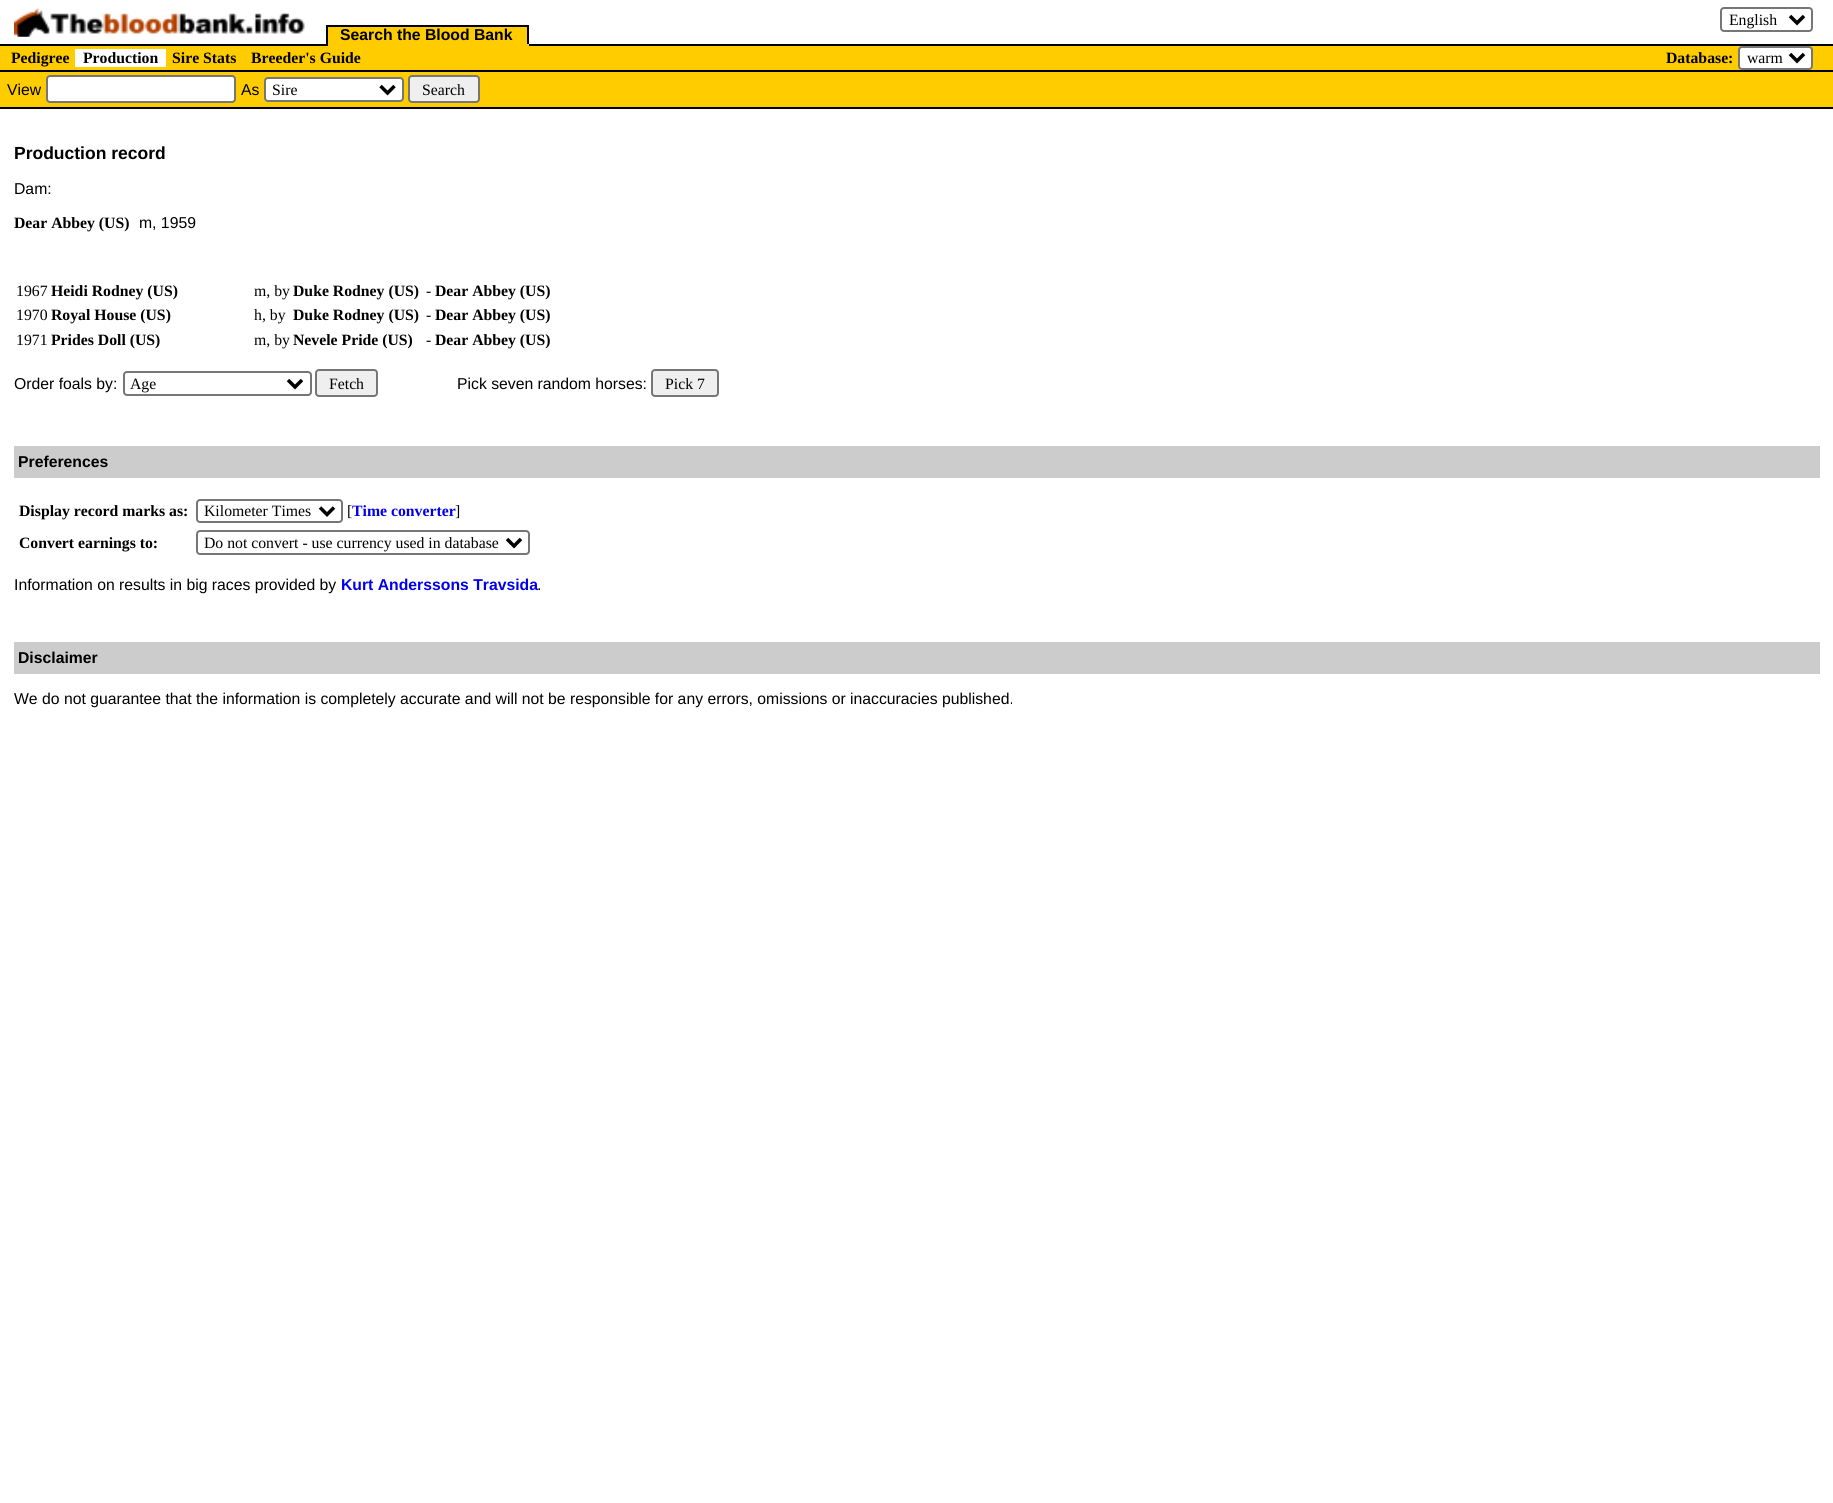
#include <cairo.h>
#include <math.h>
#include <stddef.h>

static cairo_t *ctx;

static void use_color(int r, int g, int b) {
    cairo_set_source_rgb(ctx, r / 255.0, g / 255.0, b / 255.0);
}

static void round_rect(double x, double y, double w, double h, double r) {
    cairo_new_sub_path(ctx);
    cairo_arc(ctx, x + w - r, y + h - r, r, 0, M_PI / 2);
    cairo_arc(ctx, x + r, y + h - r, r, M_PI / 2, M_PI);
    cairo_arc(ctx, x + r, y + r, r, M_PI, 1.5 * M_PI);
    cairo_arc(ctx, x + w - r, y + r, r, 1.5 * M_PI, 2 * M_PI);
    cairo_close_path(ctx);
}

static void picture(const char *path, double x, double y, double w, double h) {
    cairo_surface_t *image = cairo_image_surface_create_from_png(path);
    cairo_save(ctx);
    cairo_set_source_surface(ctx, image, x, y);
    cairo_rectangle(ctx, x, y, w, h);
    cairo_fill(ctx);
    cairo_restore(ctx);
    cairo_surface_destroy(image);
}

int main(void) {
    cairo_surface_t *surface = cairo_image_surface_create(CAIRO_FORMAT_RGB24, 1833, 1503);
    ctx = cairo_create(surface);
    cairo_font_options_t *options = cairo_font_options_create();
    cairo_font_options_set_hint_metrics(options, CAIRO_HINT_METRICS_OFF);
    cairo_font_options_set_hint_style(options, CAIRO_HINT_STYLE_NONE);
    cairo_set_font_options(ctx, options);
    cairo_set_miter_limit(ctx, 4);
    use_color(255, 255, 255);
    cairo_paint(ctx);
    use_color(0, 0, 0);
    cairo_rectangle(ctx, 0, 44, 1833, 2);
    cairo_fill(ctx);
    picture("img1.png", 14, 8, 291, 29);
    round_rect(1721, 8, 91, 23, 3);
    use_color(118, 118, 118);
    cairo_stroke(ctx);
    cairo_new_path(ctx);
    cairo_move_to(ctx, 1790, 16);
    cairo_line_to(ctx, 1797, 23);
    cairo_line_to(ctx, 1804, 16);
    use_color(0, 0, 0);
    cairo_set_line_width(ctx, 3.5);
    cairo_stroke(ctx);
    cairo_select_font_face(ctx, "Liberation Serif", CAIRO_FONT_SLANT_NORMAL, CAIRO_FONT_WEIGHT_NORMAL);
    cairo_set_font_size(ctx, 15.75);
    cairo_move_to(ctx, 1729, 25);
    cairo_show_text(ctx, "English");
    use_color(255, 204, 0);
    cairo_rectangle(ctx, 328, 27, 199, 17);
    cairo_fill(ctx);
    cairo_select_font_face(ctx, "Liberation Sans", CAIRO_FONT_SLANT_NORMAL, CAIRO_FONT_WEIGHT_BOLD);
    use_color(0, 0, 0);
    cairo_move_to(ctx, 340, 40);
    cairo_show_text(ctx, "Search the Blood Bank");
    cairo_rectangle(ctx, 326, 25, 203, 2);
    cairo_fill(ctx);
    cairo_rectangle(ctx, 527, 25, 2, 21);
    cairo_fill(ctx);
    use_color(255, 204, 0);
    cairo_rectangle(ctx, 326, 44, 203, 2);
    cairo_fill(ctx);
    use_color(0, 0, 0);
    cairo_rectangle(ctx, 326, 25, 2, 21);
    cairo_fill(ctx);
    use_color(255, 204, 0);
    cairo_rectangle(ctx, 0, 46, 1833, 24);
    cairo_fill(ctx);
    use_color(0, 0, 0);
    cairo_rectangle(ctx, 0, 70, 1833, 2);
    cairo_fill(ctx);
    cairo_select_font_face(ctx, "Liberation Serif", CAIRO_FONT_SLANT_NORMAL, CAIRO_FONT_WEIGHT_BOLD);
    cairo_move_to(ctx, 11, 63);
    cairo_show_text(ctx, "Pedigree");
    use_color(255, 255, 255);
    cairo_rectangle(ctx, 75, 49, 91, 18);
    cairo_fill(ctx);
    use_color(0, 0, 0);
    cairo_move_to(ctx, 83, 63);
    cairo_show_text(ctx, "Production");
    cairo_move_to(ctx, 172, 63);
    cairo_show_text(ctx, "Sire Stats");
    cairo_move_to(ctx, 251, 63);
    cairo_show_text(ctx, "Breeder's Guide");
    cairo_move_to(ctx, 1666, 63);
    cairo_show_text(ctx, "Database:");
    use_color(255, 255, 255);
    round_rect(1739, 47, 73, 22, 3);
    cairo_fill_preserve(ctx);
    use_color(118, 118, 118);
    cairo_set_line_width(ctx, 2);
    cairo_stroke(ctx);
    cairo_new_path(ctx);
    cairo_move_to(ctx, 1790, 54);
    cairo_line_to(ctx, 1797, 61);
    cairo_line_to(ctx, 1804, 54);
    use_color(0, 0, 0);
    cairo_set_line_width(ctx, 3.5);
    cairo_stroke(ctx);
    cairo_select_font_face(ctx, "Liberation Serif", CAIRO_FONT_SLANT_NORMAL, CAIRO_FONT_WEIGHT_NORMAL);
    cairo_move_to(ctx, 1747, 63);
    cairo_show_text(ctx, "warm");
    use_color(255, 204, 0);
    cairo_rectangle(ctx, 0, 72, 1833, 35);
    cairo_fill(ctx);
    use_color(0, 0, 0);
    cairo_rectangle(ctx, 0, 107, 1833, 2);
    cairo_fill(ctx);
    cairo_select_font_face(ctx, "Liberation Sans", CAIRO_FONT_SLANT_NORMAL, CAIRO_FONT_WEIGHT_NORMAL);
    cairo_move_to(ctx, 7, 95);
    cairo_show_text(ctx, "View");
    use_color(255, 255, 255);
    round_rect(47, 76, 188, 26, 3);
    cairo_fill_preserve(ctx);
    use_color(118, 118, 118);
    cairo_set_line_width(ctx, 2);
    cairo_stroke(ctx);
    use_color(0, 0, 0);
    cairo_move_to(ctx, 241, 95);
    cairo_show_text(ctx, "As");
    use_color(255, 255, 255);
    round_rect(265, 78, 138, 23, 3);
    cairo_fill_preserve(ctx);
    use_color(118, 118, 118);
    cairo_stroke(ctx);
    cairo_new_path(ctx);
    cairo_move_to(ctx, 380.5, 86);
    cairo_line_to(ctx, 387.5, 93);
    cairo_line_to(ctx, 394.5, 86);
    use_color(0, 0, 0);
    cairo_set_line_width(ctx, 3.5);
    cairo_stroke(ctx);
    cairo_select_font_face(ctx, "Liberation Serif", CAIRO_FONT_SLANT_NORMAL, CAIRO_FONT_WEIGHT_NORMAL);
    cairo_move_to(ctx, 272, 95);
    cairo_show_text(ctx, "Sire");
    use_color(239, 239, 239);
    round_rect(409, 76, 70, 26, 3);
    cairo_fill_preserve(ctx);
    use_color(118, 118, 118);
    cairo_set_line_width(ctx, 2);
    cairo_stroke(ctx);
    use_color(0, 0, 0);
    cairo_move_to(ctx, 422, 95);
    cairo_show_text(ctx, "Search");
    cairo_select_font_face(ctx, "Liberation Sans", CAIRO_FONT_SLANT_NORMAL, CAIRO_FONT_WEIGHT_BOLD);
    cairo_set_font_size(ctx, 17.5);
    cairo_move_to(ctx, 14, 159);
    cairo_show_text(ctx, "Production record");
    cairo_select_font_face(ctx, "Liberation Sans", CAIRO_FONT_SLANT_NORMAL, CAIRO_FONT_WEIGHT_NORMAL);
    cairo_set_font_size(ctx, 15.75);
    cairo_move_to(ctx, 14, 194);
    cairo_show_text(ctx, "Dam:");
    cairo_select_font_face(ctx, "Liberation Serif", CAIRO_FONT_SLANT_NORMAL, CAIRO_FONT_WEIGHT_BOLD);
    cairo_move_to(ctx, 14, 228);
    cairo_show_text(ctx, "Dear Abbey (US)");
    cairo_select_font_face(ctx, "Liberation Sans", CAIRO_FONT_SLANT_NORMAL, CAIRO_FONT_WEIGHT_NORMAL);
    cairo_move_to(ctx, 139, 228);
    cairo_show_text(ctx, "m, 1959");
    cairo_select_font_face(ctx, "Liberation Serif", CAIRO_FONT_SLANT_NORMAL, CAIRO_FONT_WEIGHT_NORMAL);
    cairo_move_to(ctx, 16, 296);
    cairo_show_text(ctx, "1967");
    cairo_select_font_face(ctx, "Liberation Serif", CAIRO_FONT_SLANT_NORMAL, CAIRO_FONT_WEIGHT_BOLD);
    cairo_move_to(ctx, 51, 296);
    cairo_show_text(ctx, "Heidi Rodney (US)");
    cairo_select_font_face(ctx, "Liberation Serif", CAIRO_FONT_SLANT_NORMAL, CAIRO_FONT_WEIGHT_NORMAL);
    cairo_move_to(ctx, 254, 296);
    cairo_show_text(ctx, "m, by");
    cairo_select_font_face(ctx, "Liberation Serif", CAIRO_FONT_SLANT_NORMAL, CAIRO_FONT_WEIGHT_BOLD);
    cairo_move_to(ctx, 293, 296);
    cairo_show_text(ctx, "Duke Rodney (US)");
    cairo_select_font_face(ctx, "Liberation Serif", CAIRO_FONT_SLANT_NORMAL, CAIRO_FONT_WEIGHT_NORMAL);
    cairo_move_to(ctx, 426, 296);
    cairo_show_text(ctx, "-");
    cairo_select_font_face(ctx, "Liberation Serif", CAIRO_FONT_SLANT_NORMAL, CAIRO_FONT_WEIGHT_BOLD);
    cairo_move_to(ctx, 435, 296);
    cairo_show_text(ctx, "Dear Abbey (US)");
    cairo_select_font_face(ctx, "Liberation Serif", CAIRO_FONT_SLANT_NORMAL, CAIRO_FONT_WEIGHT_NORMAL);
    cairo_move_to(ctx, 16, 320);
    cairo_show_text(ctx, "1970");
    cairo_select_font_face(ctx, "Liberation Serif", CAIRO_FONT_SLANT_NORMAL, CAIRO_FONT_WEIGHT_BOLD);
    cairo_move_to(ctx, 51, 320);
    cairo_show_text(ctx, "Royal House (US)");
    cairo_select_font_face(ctx, "Liberation Serif", CAIRO_FONT_SLANT_NORMAL, CAIRO_FONT_WEIGHT_NORMAL);
    cairo_move_to(ctx, 254, 320);
    cairo_show_text(ctx, "h, by");
    cairo_select_font_face(ctx, "Liberation Serif", CAIRO_FONT_SLANT_NORMAL, CAIRO_FONT_WEIGHT_BOLD);
    cairo_move_to(ctx, 293, 320);
    cairo_show_text(ctx, "Duke Rodney (US)");
    cairo_select_font_face(ctx, "Liberation Serif", CAIRO_FONT_SLANT_NORMAL, CAIRO_FONT_WEIGHT_NORMAL);
    cairo_move_to(ctx, 426, 320);
    cairo_show_text(ctx, "-");
    cairo_select_font_face(ctx, "Liberation Serif", CAIRO_FONT_SLANT_NORMAL, CAIRO_FONT_WEIGHT_BOLD);
    cairo_move_to(ctx, 435, 320);
    cairo_show_text(ctx, "Dear Abbey (US)");
    cairo_select_font_face(ctx, "Liberation Serif", CAIRO_FONT_SLANT_NORMAL, CAIRO_FONT_WEIGHT_NORMAL);
    cairo_move_to(ctx, 16, 345);
    cairo_show_text(ctx, "1971");
    cairo_select_font_face(ctx, "Liberation Serif", CAIRO_FONT_SLANT_NORMAL, CAIRO_FONT_WEIGHT_BOLD);
    cairo_move_to(ctx, 51, 345);
    cairo_show_text(ctx, "Prides Doll (US)");
    cairo_select_font_face(ctx, "Liberation Serif", CAIRO_FONT_SLANT_NORMAL, CAIRO_FONT_WEIGHT_NORMAL);
    cairo_move_to(ctx, 254, 345);
    cairo_show_text(ctx, "m, by");
    cairo_select_font_face(ctx, "Liberation Serif", CAIRO_FONT_SLANT_NORMAL, CAIRO_FONT_WEIGHT_BOLD);
    cairo_move_to(ctx, 293, 345);
    cairo_show_text(ctx, "Nevele Pride (US)");
    cairo_select_font_face(ctx, "Liberation Serif", CAIRO_FONT_SLANT_NORMAL, CAIRO_FONT_WEIGHT_NORMAL);
    cairo_move_to(ctx, 426, 345);
    cairo_show_text(ctx, "-");
    cairo_select_font_face(ctx, "Liberation Serif", CAIRO_FONT_SLANT_NORMAL, CAIRO_FONT_WEIGHT_BOLD);
    cairo_move_to(ctx, 435, 345);
    cairo_show_text(ctx, "Dear Abbey (US)");
    cairo_select_font_face(ctx, "Liberation Sans", CAIRO_FONT_SLANT_NORMAL, CAIRO_FONT_WEIGHT_NORMAL);
    cairo_move_to(ctx, 14, 389);
    cairo_show_text(ctx, "Order foals by:");
    round_rect(124, 372, 187, 23, 3);
    use_color(118, 118, 118);
    cairo_stroke(ctx);
    cairo_new_path(ctx);
    cairo_move_to(ctx, 288, 380);
    cairo_line_to(ctx, 295, 387);
    cairo_line_to(ctx, 302, 380);
    use_color(0, 0, 0);
    cairo_set_line_width(ctx, 3.5);
    cairo_stroke(ctx);
    cairo_select_font_face(ctx, "Liberation Serif", CAIRO_FONT_SLANT_NORMAL, CAIRO_FONT_WEIGHT_NORMAL);
    cairo_move_to(ctx, 130, 389);
    cairo_show_text(ctx, "Age");
    use_color(239, 239, 239);
    round_rect(316, 370, 61, 26, 3);
    cairo_fill_preserve(ctx);
    use_color(118, 118, 118);
    cairo_set_line_width(ctx, 2);
    cairo_stroke(ctx);
    use_color(0, 0, 0);
    cairo_move_to(ctx, 329, 389);
    cairo_show_text(ctx, "Fetch");
    cairo_select_font_face(ctx, "Liberation Sans", CAIRO_FONT_SLANT_NORMAL, CAIRO_FONT_WEIGHT_NORMAL);
    cairo_move_to(ctx, 457, 389);
    cairo_show_text(ctx, "Pick seven random horses:");
    use_color(239, 239, 239);
    round_rect(652, 370, 66, 26, 3);
    cairo_fill_preserve(ctx);
    use_color(118, 118, 118);
    cairo_stroke(ctx);
    cairo_select_font_face(ctx, "Liberation Serif", CAIRO_FONT_SLANT_NORMAL, CAIRO_FONT_WEIGHT_NORMAL);
    use_color(0, 0, 0);
    cairo_move_to(ctx, 665, 389);
    cairo_show_text(ctx, "Pick 7");
    use_color(204, 204, 204);
    cairo_rectangle(ctx, 14, 446, 1806, 32);
    cairo_fill(ctx);
    cairo_select_font_face(ctx, "Liberation Sans", CAIRO_FONT_SLANT_NORMAL, CAIRO_FONT_WEIGHT_BOLD);
    use_color(0, 0, 0);
    cairo_move_to(ctx, 18, 467);
    cairo_show_text(ctx, "Preferences");
    cairo_select_font_face(ctx, "Liberation Serif", CAIRO_FONT_SLANT_NORMAL, CAIRO_FONT_WEIGHT_BOLD);
    cairo_move_to(ctx, 19, 516);
    cairo_show_text(ctx, "Display record marks as:");
    round_rect(197, 500, 145, 22, 3);
    use_color(118, 118, 118);
    cairo_stroke(ctx);
    cairo_new_path(ctx);
    cairo_move_to(ctx, 320, 507.5);
    cairo_line_to(ctx, 327, 514.5);
    cairo_line_to(ctx, 334, 507.5);
    use_color(0, 0, 0);
    cairo_set_line_width(ctx, 3.5);
    cairo_stroke(ctx);
    cairo_select_font_face(ctx, "Liberation Serif", CAIRO_FONT_SLANT_NORMAL, CAIRO_FONT_WEIGHT_NORMAL);
    cairo_move_to(ctx, 204, 516);
    cairo_show_text(ctx, "Kilometer Times");
    cairo_move_to(ctx, 347, 516);
    cairo_show_text(ctx, "[");
    cairo_select_font_face(ctx, "Liberation Serif", CAIRO_FONT_SLANT_NORMAL, CAIRO_FONT_WEIGHT_BOLD);
    use_color(0, 0, 238);
    cairo_move_to(ctx, 352, 516);
    cairo_show_text(ctx, "Time converter");
    cairo_select_font_face(ctx, "Liberation Serif", CAIRO_FONT_SLANT_NORMAL, CAIRO_FONT_WEIGHT_NORMAL);
    use_color(0, 0, 0);
    cairo_move_to(ctx, 455, 516);
    cairo_show_text(ctx, "]");
    cairo_select_font_face(ctx, "Liberation Serif", CAIRO_FONT_SLANT_NORMAL, CAIRO_FONT_WEIGHT_BOLD);
    cairo_move_to(ctx, 19, 548);
    cairo_show_text(ctx, "Convert earnings to:");
    round_rect(197, 531, 332, 23, 3);
    use_color(118, 118, 118);
    cairo_set_line_width(ctx, 2);
    cairo_stroke(ctx);
    cairo_new_path(ctx);
    cairo_move_to(ctx, 507, 539);
    cairo_line_to(ctx, 514, 546);
    cairo_line_to(ctx, 521, 539);
    use_color(0, 0, 0);
    cairo_set_line_width(ctx, 3.5);
    cairo_stroke(ctx);
    cairo_select_font_face(ctx, "Liberation Serif", CAIRO_FONT_SLANT_NORMAL, CAIRO_FONT_WEIGHT_NORMAL);
    cairo_move_to(ctx, 204, 548);
    cairo_show_text(ctx, "Do not convert - use currency used in database");
    cairo_select_font_face(ctx, "Liberation Sans", CAIRO_FONT_SLANT_NORMAL, CAIRO_FONT_WEIGHT_NORMAL);
    cairo_move_to(ctx, 14, 590);
    cairo_show_text(ctx, "Information on results in big races provided by");
    cairo_select_font_face(ctx, "Liberation Sans", CAIRO_FONT_SLANT_NORMAL, CAIRO_FONT_WEIGHT_BOLD);
    use_color(0, 0, 238);
    cairo_move_to(ctx, 341, 590);
    cairo_show_text(ctx, "Kurt Anderssons Travsida");
    cairo_select_font_face(ctx, "Liberation Sans", CAIRO_FONT_SLANT_NORMAL, CAIRO_FONT_WEIGHT_NORMAL);
    use_color(0, 0, 0);
    cairo_move_to(ctx, 537, 590);
    cairo_show_text(ctx, ".");
    use_color(204, 204, 204);
    cairo_rectangle(ctx, 14, 642, 1806, 32);
    cairo_fill(ctx);
    cairo_select_font_face(ctx, "Liberation Sans", CAIRO_FONT_SLANT_NORMAL, CAIRO_FONT_WEIGHT_BOLD);
    use_color(0, 0, 0);
    cairo_move_to(ctx, 18, 663);
    cairo_show_text(ctx, "Disclaimer");
    cairo_select_font_face(ctx, "Liberation Sans", CAIRO_FONT_SLANT_NORMAL, CAIRO_FONT_WEIGHT_NORMAL);
    cairo_move_to(ctx, 14, 704);
    cairo_show_text(ctx, "We do not guarantee that the information is completely accurate and will not be responsible for any errors, omissions or inaccuracies published.");
    cairo_surface_write_to_png(surface, "result.png");
    cairo_font_options_destroy(options);
    cairo_destroy(ctx);
    cairo_surface_destroy(surface);
    return 0;
}
